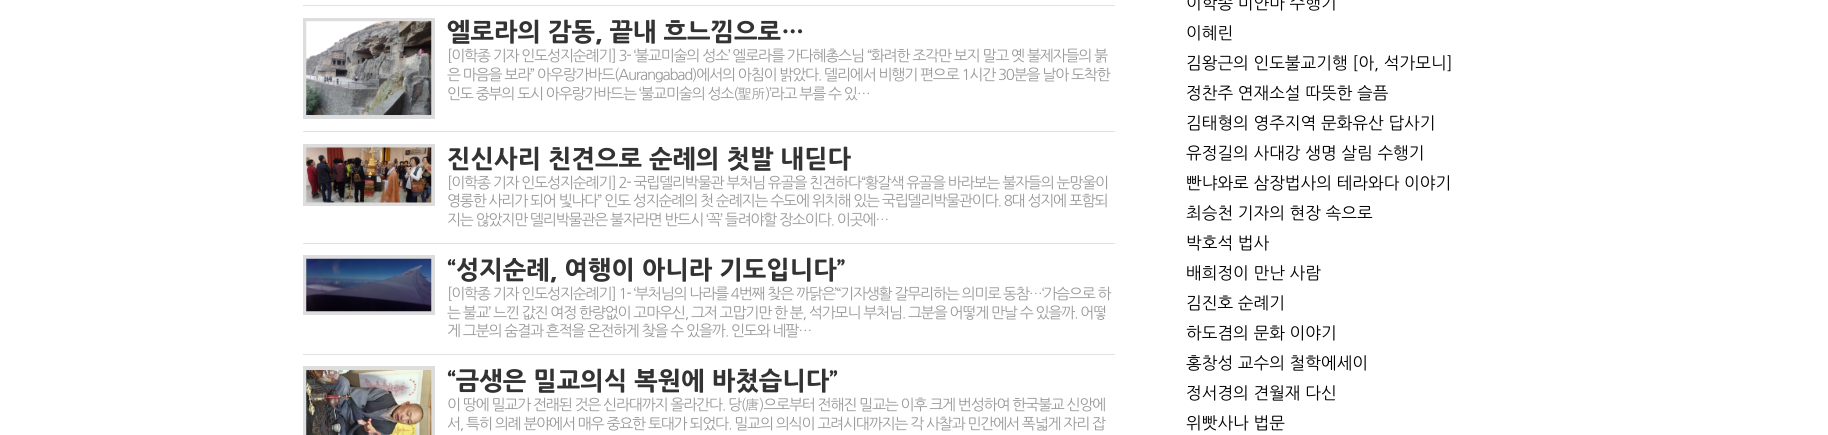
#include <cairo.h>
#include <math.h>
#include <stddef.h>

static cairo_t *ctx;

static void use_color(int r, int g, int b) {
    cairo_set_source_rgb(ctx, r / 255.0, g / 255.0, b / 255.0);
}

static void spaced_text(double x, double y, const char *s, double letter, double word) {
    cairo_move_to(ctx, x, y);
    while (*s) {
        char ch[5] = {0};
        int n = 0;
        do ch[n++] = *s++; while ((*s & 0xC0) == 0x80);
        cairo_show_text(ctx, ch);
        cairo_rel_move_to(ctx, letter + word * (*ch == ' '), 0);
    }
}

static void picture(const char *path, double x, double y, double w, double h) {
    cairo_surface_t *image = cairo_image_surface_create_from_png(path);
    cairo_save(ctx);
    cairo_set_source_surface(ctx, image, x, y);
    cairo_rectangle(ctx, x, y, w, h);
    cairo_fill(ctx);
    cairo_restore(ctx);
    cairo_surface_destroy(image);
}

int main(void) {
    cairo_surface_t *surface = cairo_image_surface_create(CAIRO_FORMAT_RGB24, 1828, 435);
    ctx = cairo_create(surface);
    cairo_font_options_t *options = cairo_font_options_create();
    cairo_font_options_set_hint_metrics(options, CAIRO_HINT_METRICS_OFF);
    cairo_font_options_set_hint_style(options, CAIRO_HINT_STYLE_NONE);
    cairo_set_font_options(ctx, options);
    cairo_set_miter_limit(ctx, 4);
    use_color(255, 255, 255);
    cairo_paint(ctx);
    use_color(225, 225, 225);
    cairo_rectangle(ctx, 303, 5, 812, 1);
    cairo_fill(ctx);
    cairo_rectangle(ctx, 303, 131, 812, 1);
    cairo_fill(ctx);
    cairo_rectangle(ctx, 305, 20, 128, 97);
    use_color(221, 221, 221);
    cairo_set_line_width(ctx, 4);
    cairo_stroke(ctx);
    picture("img1.png", 306, 21, 126, 94);
    cairo_select_font_face(ctx, "NanumGothic ExtraBold", CAIRO_FONT_SLANT_NORMAL, CAIRO_FONT_WEIGHT_NORMAL);
    cairo_set_font_size(ctx, 25);
    use_color(51, 51, 51);
    cairo_move_to(ctx, 447, 41);
    cairo_show_text(ctx, "엘로라의 감동, 끝내 흐느낌으로…");
    cairo_select_font_face(ctx, "NanumGothic", CAIRO_FONT_SLANT_NORMAL, CAIRO_FONT_WEIGHT_NORMAL);
    cairo_set_font_size(ctx, 15);
    use_color(153, 153, 153);
    spaced_text(447, 61, "[이학종 기자 인도성지순례기] 3- ‘불교미술의 성소’ 엘로라를 가다혜총스님 “화려한 조각만 보지 말고 옛 불제자들의 붉", -1.25, 0);
    spaced_text(447, 80, "은 마음을 보라” 아우랑가바드(Aurangabad)에서의 아침이 밝았다. 델리에서 비행기 편으로 1시간 30분을 날아 도착한", -1.25, 0);
    spaced_text(447, 99, "인도 중부의 도시 아우랑가바드는 ‘불교미술의 성소(", -1.25, 0);
    cairo_select_font_face(ctx, "Dotum", CAIRO_FONT_SLANT_NORMAL, CAIRO_FONT_WEIGHT_NORMAL);
    spaced_text(737, 99, "聖所", -1.25, 0);
    cairo_select_font_face(ctx, "NanumGothic", CAIRO_FONT_SLANT_NORMAL, CAIRO_FONT_WEIGHT_NORMAL);
    spaced_text(765, 99, ")’라고 부를 수 있…", -1.25, 0);
    use_color(225, 225, 225);
    cairo_rectangle(ctx, 303, 243, 812, 1);
    cairo_fill(ctx);
    cairo_rectangle(ctx, 305, 146, 128, 58);
    use_color(221, 221, 221);
    cairo_stroke(ctx);
    picture("img2.png", 306, 147, 126, 56);
    cairo_select_font_face(ctx, "NanumGothic ExtraBold", CAIRO_FONT_SLANT_NORMAL, CAIRO_FONT_WEIGHT_NORMAL);
    cairo_set_font_size(ctx, 25);
    use_color(51, 51, 51);
    cairo_move_to(ctx, 447, 168);
    cairo_show_text(ctx, "진신사리 친견으로 순례의 첫발 내딛다");
    cairo_select_font_face(ctx, "NanumGothic", CAIRO_FONT_SLANT_NORMAL, CAIRO_FONT_WEIGHT_NORMAL);
    cairo_set_font_size(ctx, 15);
    use_color(153, 153, 153);
    spaced_text(447, 188, "[이학종 기자 인도성지순례기] 2- 국립델리박물관 부처님 유골을 친견하다“황갈색 유골을 바라보는 불자들의 눈망울이", -1.25, 0);
    spaced_text(447, 206, "영롱한 사리가 되어 빛나다” 인도 성지순례의 첫 순례지는 수도에 위치해 있는 국립델리박물관이다. 8대 성지에 포함되", -1.25, 0);
    spaced_text(447, 225, "지는 않았지만 델리박물관은 불자라면 반드시 ‘꼭’ 들려야할 장소이다. 이곳에…", -1.25, 0);
    use_color(225, 225, 225);
    cairo_rectangle(ctx, 303, 354, 812, 1);
    cairo_fill(ctx);
    cairo_rectangle(ctx, 305, 257, 128, 56);
    use_color(221, 221, 221);
    cairo_stroke(ctx);
    picture("img3.png", 306, 258, 126, 54);
    cairo_select_font_face(ctx, "NanumGothic ExtraBold", CAIRO_FONT_SLANT_NORMAL, CAIRO_FONT_WEIGHT_NORMAL);
    cairo_set_font_size(ctx, 25);
    use_color(51, 51, 51);
    cairo_move_to(ctx, 447, 279);
    cairo_show_text(ctx, "“성지순례, 여행이 아니라 기도입니다”");
    cairo_select_font_face(ctx, "NanumGothic", CAIRO_FONT_SLANT_NORMAL, CAIRO_FONT_WEIGHT_NORMAL);
    cairo_set_font_size(ctx, 15);
    use_color(153, 153, 153);
    spaced_text(447, 299, "[이학종 기자 인도성지순례기] 1- ‘부처님의 나라를 4번째 찾은 까닭은’“기자생활 갈무리하는 의미로 동참…‘가슴으로 하", -1.25, 0);
    spaced_text(447, 318, "는 불교’ 느낀 값진 여정 한량없이 고마우신, 그저 고맙기만 한 분, 석가모니 부처님. 그분을 어떻게 만날 수 있을까. 어떻", -1.25, 0);
    spaced_text(447, 336, "게 그분의 숨결과 흔적을 온전하게 찾을 수 있을까. 인도와 네팔…", -1.25, 0);
    cairo_rectangle(ctx, 305, 368, 128, 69);
    use_color(221, 221, 221);
    cairo_stroke(ctx);
    picture("img4.png", 306, 370, 126, 65);
    cairo_select_font_face(ctx, "NanumGothic ExtraBold", CAIRO_FONT_SLANT_NORMAL, CAIRO_FONT_WEIGHT_NORMAL);
    cairo_set_font_size(ctx, 25);
    use_color(51, 51, 51);
    cairo_move_to(ctx, 447, 390);
    cairo_show_text(ctx, "“금생은 밀교의식 복원에 바쳤습니다”");
    cairo_select_font_face(ctx, "NanumGothic", CAIRO_FONT_SLANT_NORMAL, CAIRO_FONT_WEIGHT_NORMAL);
    cairo_set_font_size(ctx, 15);
    use_color(153, 153, 153);
    spaced_text(447, 410, "이 땅에 밀교가 전래된 것은 신라대까지 올라간다. 당(", -1.25, 0);
    cairo_select_font_face(ctx, "Dotum", CAIRO_FONT_SLANT_NORMAL, CAIRO_FONT_WEIGHT_NORMAL);
    spaced_text(745, 410, "唐", -1.25, 0);
    cairo_select_font_face(ctx, "NanumGothic", CAIRO_FONT_SLANT_NORMAL, CAIRO_FONT_WEIGHT_NORMAL);
    spaced_text(759, 410, ")으로부터 전해진 밀교는 이후 크게 번성하여 한국불교 신앙에", -1.25, 0);
    spaced_text(447, 429, "서, 특히 의례 분야에서 매우 중요한 토대가 되었다. 밀교의 의식이 고려시대까지는 각 사찰과 민간에서 폭넓게 자리 잡", -1.25, 0);
    cairo_set_font_size(ctx, 16.7);
    use_color(0, 0, 0);
    cairo_move_to(ctx, 1186, 9);
    cairo_show_text(ctx, "이학종 미얀마 수행기");
    cairo_move_to(ctx, 1186, 39);
    cairo_show_text(ctx, "이혜린");
    cairo_move_to(ctx, 1186, 69);
    cairo_show_text(ctx, "김왕근의 인도불교기행 [아, 석가모니]");
    cairo_move_to(ctx, 1186, 99);
    cairo_show_text(ctx, "정찬주 연재소설 따뜻한 슬픔");
    cairo_move_to(ctx, 1186, 129);
    cairo_show_text(ctx, "김태형의 영주지역 문화유산 답사기");
    cairo_move_to(ctx, 1186, 159);
    cairo_show_text(ctx, "유정길의 사대강 생명 살림 수행기");
    cairo_move_to(ctx, 1186, 189);
    cairo_show_text(ctx, "빤냐와로 삼장법사의 테라와다 이야기");
    cairo_move_to(ctx, 1186, 219);
    cairo_show_text(ctx, "최승천 기자의 현장 속으로");
    cairo_move_to(ctx, 1186, 249);
    cairo_show_text(ctx, "박호석 법사");
    cairo_move_to(ctx, 1186, 279);
    cairo_show_text(ctx, "배희정이 만난 사람");
    cairo_move_to(ctx, 1186, 309);
    cairo_show_text(ctx, "김진호 순례기");
    cairo_move_to(ctx, 1186, 339);
    cairo_show_text(ctx, "하도겸의 문화 이야기");
    cairo_move_to(ctx, 1186, 369);
    cairo_show_text(ctx, "홍창성 교수의 철학에세이");
    cairo_move_to(ctx, 1186, 399);
    cairo_show_text(ctx, "정서경의 견월재 다신");
    cairo_move_to(ctx, 1186, 429);
    cairo_show_text(ctx, "위빳사나 법문");
    cairo_surface_write_to_png(surface, "result.png");
    cairo_font_options_destroy(options);
    cairo_destroy(ctx);
    cairo_surface_destroy(surface);
    return 0;
}
